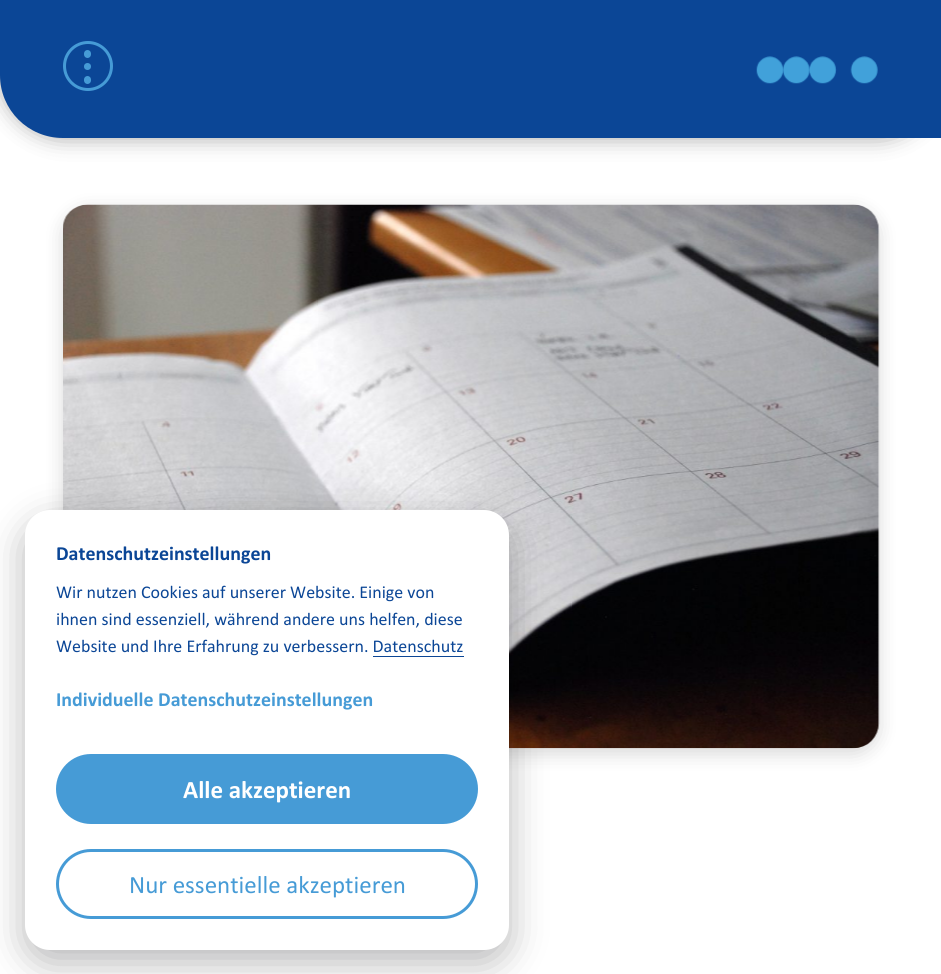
#include <cairo.h>
#include <math.h>
#include <stddef.h>

static cairo_t *ctx;

static void use_color(int r, int g, int b) {
    cairo_set_source_rgb(ctx, r / 255.0, g / 255.0, b / 255.0);
}

static void round_rect(double x, double y, double w, double h, double r) {
    cairo_new_sub_path(ctx);
    cairo_arc(ctx, x + w - r, y + h - r, r, 0, M_PI / 2);
    cairo_arc(ctx, x + r, y + h - r, r, M_PI / 2, M_PI);
    cairo_arc(ctx, x + r, y + r, r, M_PI, 1.5 * M_PI);
    cairo_arc(ctx, x + w - r, y + r, r, 1.5 * M_PI, 2 * M_PI);
    cairo_close_path(ctx);
}

static void shadow(double x, double y, double w, double h, double r, double blur, double alpha) {
    cairo_push_group_with_content(ctx, CAIRO_CONTENT_ALPHA);
    cairo_set_operator(ctx, CAIRO_OPERATOR_SOURCE);
    for (int i = 15; i >= -15 && fmin(w, h) + blur * i / 3 > 0; i -= 2) {
        double e = blur * i / 6;
        cairo_set_source_rgba(ctx, 0, 0, 0, alpha * erfc((i - 1) / 8.5) / 2);
        round_rect(x - e, y - e, w + 2 * e, h + 2 * e, fmax(0, fmin(r + e + blur * .6, fmin(w, h) / 2 + e)));
        cairo_fill(ctx);
    }
    cairo_pattern_t *soft = cairo_pop_group(ctx);
    cairo_mask(ctx, soft);
    cairo_pattern_destroy(soft);
}

static void picture(const char *path, double x, double y, double w, double h) {
    cairo_surface_t *image = cairo_image_surface_create_from_png(path);
    cairo_save(ctx);
    cairo_set_source_surface(ctx, image, x, y);
    cairo_rectangle(ctx, x, y, w, h);
    cairo_fill(ctx);
    cairo_restore(ctx);
    cairo_surface_destroy(image);
}

int main(void) {
    cairo_surface_t *surface = cairo_image_surface_create(CAIRO_FORMAT_RGB24, 941, 974);
    ctx = cairo_create(surface);
    cairo_font_options_t *options = cairo_font_options_create();
    cairo_font_options_set_hint_metrics(options, CAIRO_HINT_METRICS_OFF);
    cairo_font_options_set_hint_style(options, CAIRO_HINT_STYLE_NONE);
    cairo_set_font_options(ctx, options);
    cairo_set_miter_limit(ctx, 4);
    use_color(255, 255, 255);
    cairo_paint(ctx);
    use_color(0, 0, 0);
    shadow(0, -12, 941, 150, 63, 11, 0.35);
    use_color(11, 70, 150);
    cairo_new_path(ctx);
    cairo_move_to(ctx, 0, -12);
    cairo_line_to(ctx, 941, -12);
    cairo_line_to(ctx, 941, 138);
    cairo_line_to(ctx, 63, 138);
    cairo_curve_to(ctx, 28, 138, 0, 110, 0, 75);
    cairo_close_path(ctx);
    cairo_fill(ctx);
    picture("img1.png", 756, 56, 122, 28);
    cairo_arc(ctx, 88, 66, 23.5, 0, 2 * M_PI);
    use_color(70, 155, 214);
    cairo_set_line_width(ctx, 3);
    cairo_stroke(ctx);
    round_rect(84, 50, 7, 8, 3.5);
    cairo_fill(ctx);
    cairo_arc(ctx, 87.5, 66.5, 3.5, 0, 2 * M_PI);
    cairo_fill(ctx);
    round_rect(84, 76, 7, 8, 3.5);
    cairo_fill(ctx);
    use_color(0, 0, 0);
    shadow(63, 210, 816, 544, 25, 9.5, 0.15);
    picture("img2.png", 63, 204, 817, 545);
    use_color(2, 2, 3);
    shadow(25, 523, 484, 440, 25, 19, 0.28);
    use_color(255, 255, 255);
    round_rect(25, 510, 484, 440, 25);
    cairo_fill(ctx);
    cairo_select_font_face(ctx, "Calibri", CAIRO_FONT_SLANT_NORMAL, CAIRO_FONT_WEIGHT_BOLD);
    cairo_set_font_size(ctx, 20);
    use_color(11, 70, 150);
    cairo_move_to(ctx, 56, 560);
    cairo_show_text(ctx, "Datenschutzeinstellungen");
    cairo_select_font_face(ctx, "Calibri", CAIRO_FONT_SLANT_NORMAL, CAIRO_FONT_WEIGHT_NORMAL);
    cairo_set_font_size(ctx, 18);
    cairo_move_to(ctx, 56, 598);
    cairo_show_text(ctx, "Wir nutzen Cookies auf unserer Website. Einige von");
    cairo_move_to(ctx, 56, 625);
    cairo_show_text(ctx, "ihnen sind essenziell, während andere uns helfen, diese");
    cairo_move_to(ctx, 56, 652);
    cairo_show_text(ctx, "Website und Ihre Erfahrung zu verbessern. Datenschutz");
    cairo_rectangle(ctx, 373, 656, 91, 1);
    cairo_fill(ctx);
    cairo_select_font_face(ctx, "Calibri", CAIRO_FONT_SLANT_NORMAL, CAIRO_FONT_WEIGHT_BOLD);
    cairo_set_font_size(ctx, 20);
    use_color(70, 155, 214);
    cairo_move_to(ctx, 56, 706);
    cairo_show_text(ctx, "Individuelle Datenschutzeinstellungen");
    round_rect(57.5, 755.5, 419, 67, 33.5);
    cairo_fill_preserve(ctx);
    cairo_stroke(ctx);
    cairo_set_font_size(ctx, 25);
    use_color(255, 255, 255);
    cairo_move_to(ctx, 183, 798);
    cairo_show_text(ctx, "Alle akzeptieren");
    round_rect(57.5, 850.5, 419, 67, 33.5);
    use_color(70, 155, 214);
    cairo_stroke(ctx);
    cairo_select_font_face(ctx, "Calibri", CAIRO_FONT_SLANT_NORMAL, CAIRO_FONT_WEIGHT_NORMAL);
    cairo_move_to(ctx, 129, 893);
    cairo_show_text(ctx, "Nur essentielle akzeptieren");
    cairo_surface_write_to_png(surface, "result.png");
    cairo_font_options_destroy(options);
    cairo_destroy(ctx);
    cairo_surface_destroy(surface);
    return 0;
}
